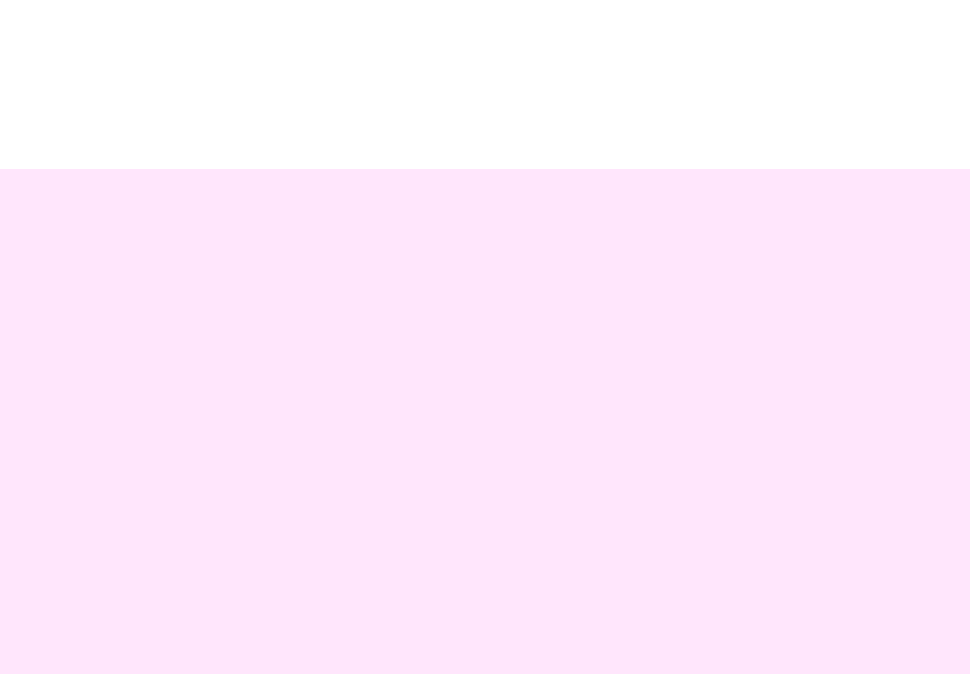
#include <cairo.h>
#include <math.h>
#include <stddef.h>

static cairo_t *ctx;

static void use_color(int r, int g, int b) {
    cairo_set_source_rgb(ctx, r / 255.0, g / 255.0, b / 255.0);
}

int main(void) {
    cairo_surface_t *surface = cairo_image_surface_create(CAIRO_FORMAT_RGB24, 970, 674);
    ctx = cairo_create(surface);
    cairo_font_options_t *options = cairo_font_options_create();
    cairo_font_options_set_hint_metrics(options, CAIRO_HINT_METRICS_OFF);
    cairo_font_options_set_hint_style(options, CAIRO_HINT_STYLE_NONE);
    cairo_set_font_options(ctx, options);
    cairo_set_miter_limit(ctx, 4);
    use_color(255, 255, 255);
    cairo_paint(ctx);
    use_color(255, 230, 252);
    cairo_rectangle(ctx, 0, 169, 970, 505);
    cairo_fill(ctx);
    cairo_surface_write_to_png(surface, "result.png");
    cairo_font_options_destroy(options);
    cairo_destroy(ctx);
    cairo_surface_destroy(surface);
    return 0;
}
